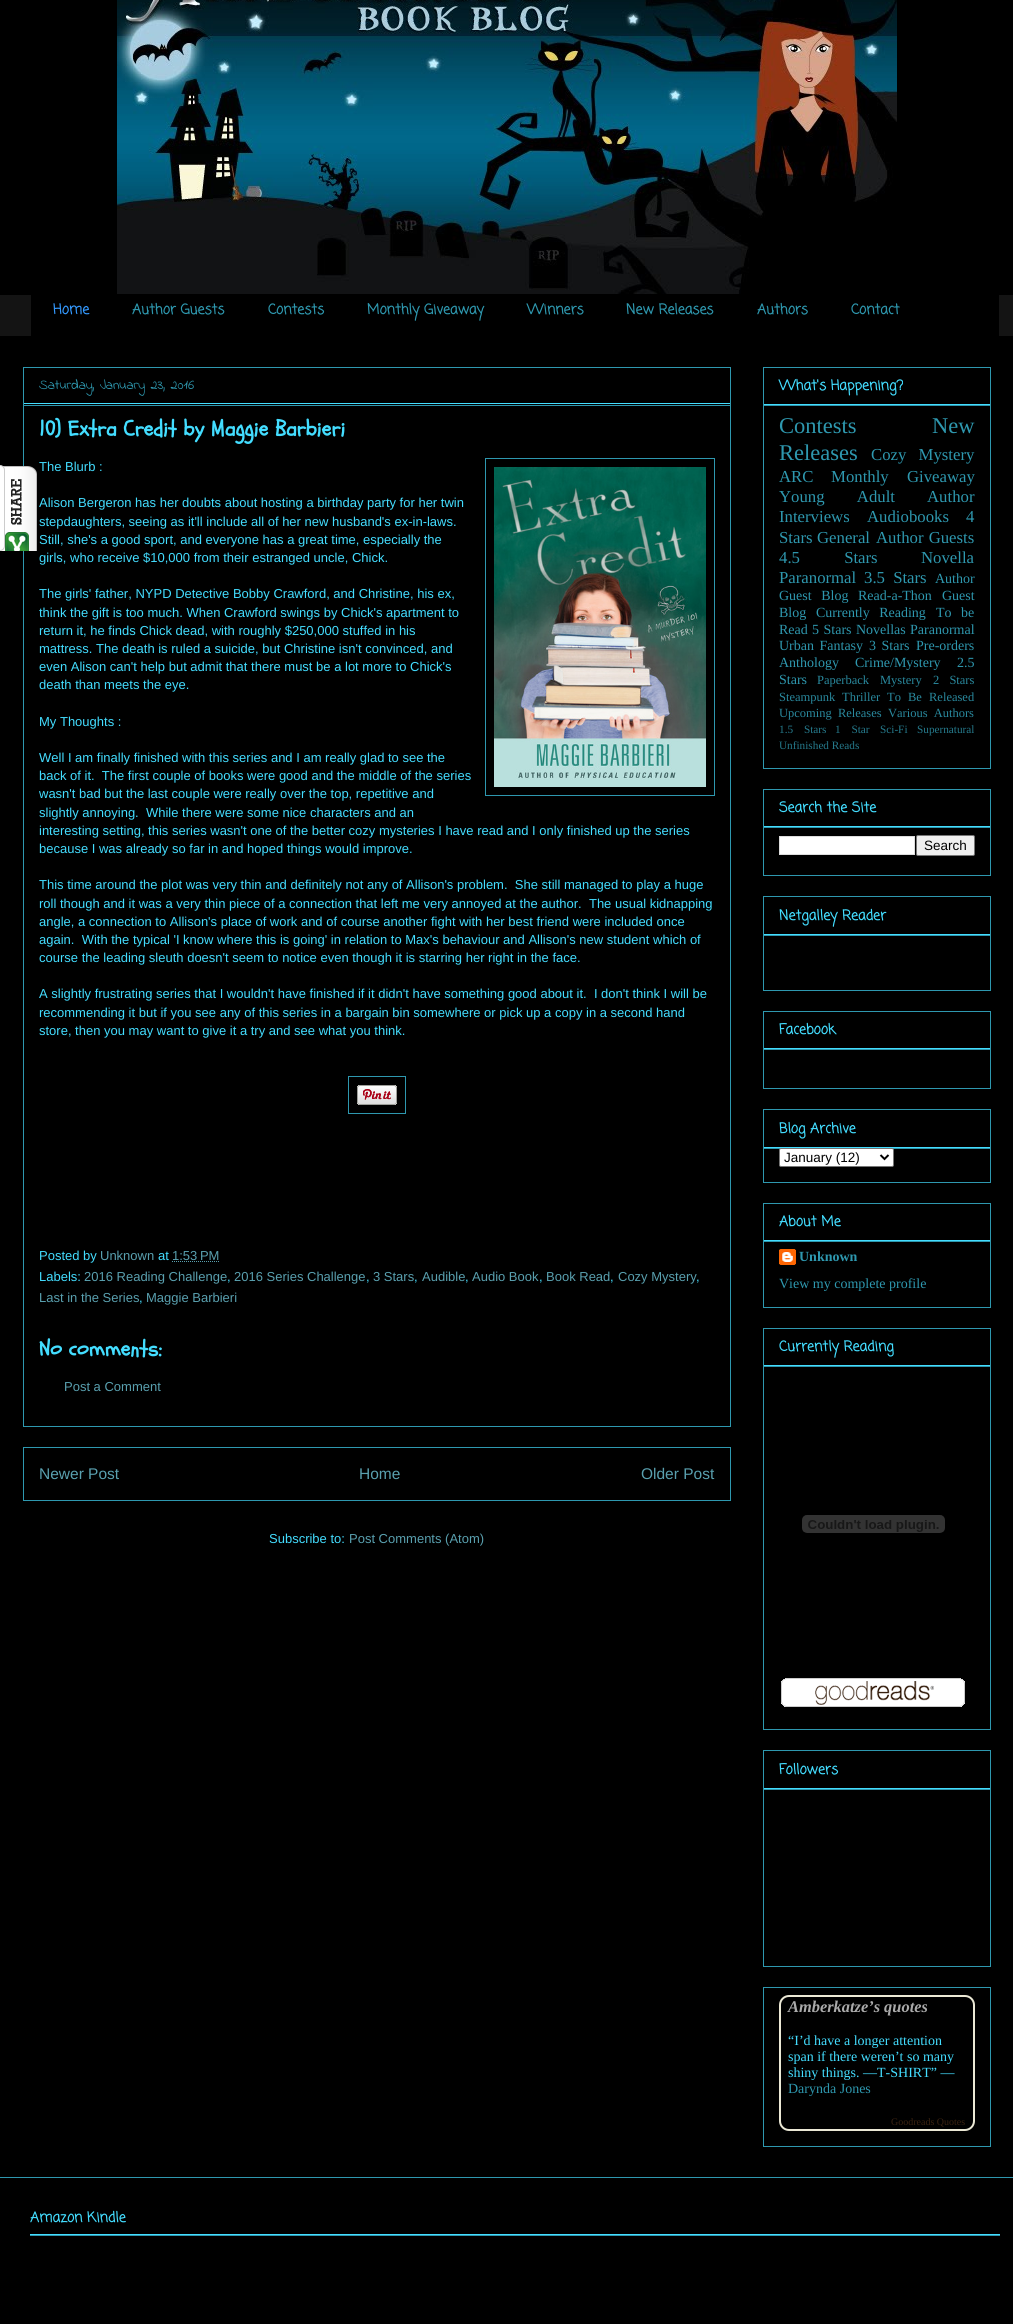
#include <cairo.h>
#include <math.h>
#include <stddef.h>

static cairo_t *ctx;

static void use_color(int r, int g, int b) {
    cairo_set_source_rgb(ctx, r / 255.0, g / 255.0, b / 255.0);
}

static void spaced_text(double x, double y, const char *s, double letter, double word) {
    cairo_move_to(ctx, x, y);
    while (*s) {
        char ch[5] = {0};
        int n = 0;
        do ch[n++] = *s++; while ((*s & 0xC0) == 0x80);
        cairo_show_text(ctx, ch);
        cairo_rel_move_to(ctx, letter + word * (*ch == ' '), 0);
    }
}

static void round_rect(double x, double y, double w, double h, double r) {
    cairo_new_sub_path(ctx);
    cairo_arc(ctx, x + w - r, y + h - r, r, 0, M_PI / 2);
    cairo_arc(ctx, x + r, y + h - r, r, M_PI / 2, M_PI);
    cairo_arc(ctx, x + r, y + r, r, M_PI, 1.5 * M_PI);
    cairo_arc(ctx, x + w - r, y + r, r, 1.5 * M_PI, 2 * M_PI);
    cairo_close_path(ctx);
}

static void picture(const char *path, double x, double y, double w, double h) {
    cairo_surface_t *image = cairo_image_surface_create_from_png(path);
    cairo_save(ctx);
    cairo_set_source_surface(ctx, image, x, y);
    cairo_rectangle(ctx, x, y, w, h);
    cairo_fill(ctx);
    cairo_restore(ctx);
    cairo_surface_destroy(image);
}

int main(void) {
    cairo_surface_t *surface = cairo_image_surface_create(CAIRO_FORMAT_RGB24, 1013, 2324);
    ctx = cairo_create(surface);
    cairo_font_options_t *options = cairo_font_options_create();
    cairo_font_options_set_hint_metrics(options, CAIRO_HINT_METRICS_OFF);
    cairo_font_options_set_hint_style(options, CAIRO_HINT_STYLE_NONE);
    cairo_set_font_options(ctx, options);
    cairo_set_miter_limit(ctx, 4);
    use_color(0, 0, 0);
    cairo_paint(ctx);
    picture("img1.png", 117, 0, 780, 294);
    use_color(20, 20, 20);
    cairo_rectangle(ctx, 0, 295, 1013, 41);
    cairo_fill(ctx);
    use_color(0, 0, 0);
    cairo_rectangle(ctx, 31, 295, 968, 41);
    cairo_fill(ctx);
    cairo_select_font_face(ctx, "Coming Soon", CAIRO_FONT_SLANT_NORMAL, CAIRO_FONT_WEIGHT_BOLD);
    cairo_set_font_size(ctx, 14);
    use_color(51, 153, 255);
    cairo_move_to(ctx, 53, 314);
    cairo_show_text(ctx, "Home");
    use_color(46, 152, 175);
    cairo_move_to(ctx, 132, 314);
    cairo_show_text(ctx, "Author Guests");
    cairo_move_to(ctx, 268, 314);
    cairo_show_text(ctx, "Contests");
    cairo_move_to(ctx, 367, 314);
    cairo_show_text(ctx, "Monthly Giveaway");
    cairo_move_to(ctx, 527, 314);
    cairo_show_text(ctx, "Winners");
    cairo_move_to(ctx, 626, 314);
    cairo_show_text(ctx, "New Releases");
    cairo_move_to(ctx, 757, 314);
    cairo_show_text(ctx, "Authors");
    cairo_move_to(ctx, 851, 314);
    cairo_show_text(ctx, "Contact");
    cairo_rectangle(ctx, 23.5, 367.5, 707, 1059);
    cairo_set_line_width(ctx, 1);
    cairo_stroke(ctx);
    use_color(67, 221, 255);
    cairo_rectangle(ctx, 24, 403, 706, 1);
    cairo_fill(ctx);
    cairo_select_font_face(ctx, "Indie Flower", CAIRO_FONT_SLANT_NORMAL, CAIRO_FONT_WEIGHT_NORMAL);
    use_color(46, 152, 175);
    cairo_move_to(ctx, 39, 389);
    cairo_show_text(ctx, "Saturday, January 23, 2016");
    cairo_rectangle(ctx, 24, 405, 706, 1);
    cairo_fill(ctx);
    cairo_select_font_face(ctx, "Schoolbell", CAIRO_FONT_SLANT_NORMAL, CAIRO_FONT_WEIGHT_BOLD);
    cairo_set_font_size(ctx, 22);
    use_color(67, 221, 255);
    cairo_move_to(ctx, 39, 436);
    cairo_show_text(ctx, "10) Extra Credit by Maggie Barbieri");
    cairo_select_font_face(ctx, "Liberation Sans", CAIRO_FONT_SLANT_NORMAL, CAIRO_FONT_WEIGHT_NORMAL);
    cairo_set_font_size(ctx, 13);
    cairo_move_to(ctx, 39, 471);
    cairo_show_text(ctx, "The Blurb :");
    cairo_rectangle(ctx, 485.5, 458.5, 229, 337);
    use_color(46, 152, 175);
    cairo_stroke(ctx);
    picture("img2.png", 494, 467, 212, 320);
    use_color(67, 221, 255);
    cairo_move_to(ctx, 39, 507);
    cairo_show_text(ctx, "Alison Bergeron has her doubts about hosting a birthday party for her twin");
    cairo_move_to(ctx, 39, 526);
    cairo_show_text(ctx, "stepdaughters, seeing as it'll include all of her new husband's ex-in-laws.");
    cairo_move_to(ctx, 39, 544);
    cairo_show_text(ctx, "Still, she's a good sport, and everyone has a great time, especially the");
    cairo_move_to(ctx, 39, 562);
    cairo_show_text(ctx, "girls, who receive $10,000 from their estranged uncle, Chick.");
    cairo_move_to(ctx, 39, 598);
    cairo_show_text(ctx, "The girls' father, NYPD Detective Bobby Crawford, and Christine, his ex,");
    cairo_move_to(ctx, 39, 617);
    cairo_show_text(ctx, "think the gift is too much. When Crawford swings by Chick's apartment to");
    cairo_move_to(ctx, 39, 635);
    cairo_show_text(ctx, "return it, he finds Chick dead, with roughly $250,000 stuffed in his");
    cairo_move_to(ctx, 39, 653);
    cairo_show_text(ctx, "mattress. The death is ruled a suicide, but Christine isn't convinced, and");
    cairo_move_to(ctx, 39, 671);
    cairo_show_text(ctx, "even Alison can't help but admit that there must be a lot more to Chick's");
    cairo_move_to(ctx, 39, 689);
    cairo_show_text(ctx, "death than meets the eye.");
    cairo_move_to(ctx, 39, 726);
    cairo_show_text(ctx, "My Thoughts :");
    cairo_move_to(ctx, 39, 762);
    cairo_show_text(ctx, "Well I am finally finished with this series and I am really glad to see the");
    cairo_move_to(ctx, 39, 780);
    cairo_show_text(ctx, "back of it.  The first couple of books were good and the middle of the series");
    cairo_move_to(ctx, 39, 798);
    cairo_show_text(ctx, "wasn't bad but the last couple were really over the top, repetitive and");
    cairo_move_to(ctx, 39, 817);
    cairo_show_text(ctx, "slightly annoying.  While there were some nice characters and an");
    cairo_move_to(ctx, 39, 835);
    cairo_show_text(ctx, "interesting setting, this series wasn't one of the better cozy mysteries I have read and I only finished up the series");
    cairo_move_to(ctx, 39, 853);
    cairo_show_text(ctx, "because I was already so far in and hoped things would improve.");
    cairo_move_to(ctx, 39, 889);
    cairo_show_text(ctx, "This time around the plot was very thin and definitely not any of Allison's problem.  She still managed to play a huge");
    cairo_move_to(ctx, 39, 908);
    cairo_show_text(ctx, "roll though and it was a very thin piece of a connection that left me very annoyed at the author.  The usual kidnapping");
    cairo_move_to(ctx, 39, 926);
    cairo_show_text(ctx, "angle, a connection to Allison's place of work and of course another fight with her best friend were included once");
    cairo_move_to(ctx, 39, 944);
    cairo_show_text(ctx, "again.  With the typical 'I know where this is going' in relation to Max's behaviour and Allison's new student which of");
    cairo_move_to(ctx, 39, 962);
    cairo_show_text(ctx, "course the leading sleuth doesn't seem to notice even though it is starring her right in the face.");
    cairo_move_to(ctx, 39, 998);
    cairo_show_text(ctx, "A slightly frustrating series that I wouldn't have finished if it didn't have something good about it.  I don't think I will be");
    cairo_move_to(ctx, 39, 1017);
    cairo_show_text(ctx, "recommending it but if you see any of this series in a bargain bin somewhere or pick up a copy in a second hand");
    cairo_move_to(ctx, 39, 1035);
    cairo_show_text(ctx, "store, then you may want to give it a try and see what you think.");
    cairo_rectangle(ctx, 348.5, 1076.5, 57, 37);
    use_color(46, 152, 175);
    cairo_stroke(ctx);
    picture("img3.png", 357, 1085, 40, 20);
    use_color(67, 221, 255);
    cairo_move_to(ctx, 39, 1260);
    cairo_show_text(ctx, "Posted by");
    use_color(89, 160, 175);
    cairo_move_to(ctx, 100, 1260);
    cairo_show_text(ctx, "Unknown");
    use_color(67, 221, 255);
    cairo_move_to(ctx, 158, 1260);
    cairo_show_text(ctx, "at");
    use_color(89, 160, 175);
    cairo_move_to(ctx, 172, 1260);
    cairo_show_text(ctx, "1:53 PM");
    cairo_new_path(ctx);
    cairo_move_to(ctx, 172, 1261.5);
    cairo_line_to(ctx, 219.5, 1261.5);
    cairo_set_dash(ctx, (double[]){1, 1}, 2, 0);
    cairo_stroke(ctx);
    use_color(67, 221, 255);
    cairo_move_to(ctx, 39, 1281);
    cairo_show_text(ctx, "Labels:");
    use_color(89, 160, 175);
    cairo_move_to(ctx, 84, 1281);
    cairo_show_text(ctx, "2016 Reading Challenge");
    use_color(67, 221, 255);
    cairo_move_to(ctx, 227, 1281);
    cairo_show_text(ctx, ",");
    use_color(89, 160, 175);
    cairo_move_to(ctx, 234, 1281);
    cairo_show_text(ctx, "2016 Series Challenge");
    use_color(67, 221, 255);
    cairo_move_to(ctx, 366, 1281);
    cairo_show_text(ctx, ",");
    use_color(89, 160, 175);
    cairo_move_to(ctx, 373, 1281);
    cairo_show_text(ctx, "3 Stars");
    use_color(67, 221, 255);
    cairo_move_to(ctx, 414, 1281);
    cairo_show_text(ctx, ",");
    use_color(89, 160, 175);
    cairo_move_to(ctx, 422, 1281);
    cairo_show_text(ctx, "Audible");
    use_color(67, 221, 255);
    cairo_move_to(ctx, 465, 1281);
    cairo_show_text(ctx, ",");
    use_color(89, 160, 175);
    cairo_move_to(ctx, 472, 1281);
    cairo_show_text(ctx, "Audio Book");
    use_color(67, 221, 255);
    cairo_move_to(ctx, 539, 1281);
    cairo_show_text(ctx, ",");
    use_color(89, 160, 175);
    cairo_move_to(ctx, 546, 1281);
    cairo_show_text(ctx, "Book Read");
    use_color(67, 221, 255);
    cairo_move_to(ctx, 610, 1281);
    cairo_show_text(ctx, ",");
    use_color(89, 160, 175);
    cairo_move_to(ctx, 618, 1281);
    cairo_show_text(ctx, "Cozy Mystery");
    use_color(67, 221, 255);
    cairo_move_to(ctx, 696, 1281);
    cairo_show_text(ctx, ",");
    use_color(89, 160, 175);
    cairo_move_to(ctx, 39, 1302);
    cairo_show_text(ctx, "Last in the Series");
    use_color(67, 221, 255);
    cairo_move_to(ctx, 139, 1302);
    cairo_show_text(ctx, ",");
    use_color(89, 160, 175);
    cairo_move_to(ctx, 146, 1302);
    cairo_show_text(ctx, "Maggie Barbieri");
    cairo_select_font_face(ctx, "Schoolbell", CAIRO_FONT_SLANT_NORMAL, CAIRO_FONT_WEIGHT_BOLD);
    cairo_set_font_size(ctx, 22);
    use_color(67, 221, 255);
    cairo_move_to(ctx, 39, 1356);
    cairo_show_text(ctx, "No comments:");
    cairo_select_font_face(ctx, "Liberation Sans", CAIRO_FONT_SLANT_NORMAL, CAIRO_FONT_WEIGHT_NORMAL);
    cairo_set_font_size(ctx, 13);
    use_color(89, 160, 175);
    cairo_move_to(ctx, 64, 1391);
    cairo_show_text(ctx, "Post a Comment");
    cairo_rectangle(ctx, 23.5, 1447.5, 707, 53);
    use_color(46, 152, 175);
    cairo_set_dash(ctx, NULL, 0, 0);
    cairo_stroke(ctx);
    cairo_set_font_size(ctx, 15.5);
    use_color(89, 160, 175);
    cairo_move_to(ctx, 39, 1479);
    cairo_show_text(ctx, "Newer Post");
    cairo_move_to(ctx, 359, 1479);
    cairo_show_text(ctx, "Home");
    cairo_move_to(ctx, 641, 1479);
    cairo_show_text(ctx, "Older Post");
    cairo_set_font_size(ctx, 13);
    use_color(67, 221, 255);
    cairo_move_to(ctx, 269, 1543);
    cairo_show_text(ctx, "Subscribe to:");
    use_color(89, 160, 175);
    cairo_move_to(ctx, 349, 1543);
    cairo_show_text(ctx, "Post Comments (Atom)");
    cairo_rectangle(ctx, 763.5, 367.5, 227, 401);
    use_color(46, 152, 175);
    cairo_stroke(ctx);
    use_color(67, 221, 255);
    cairo_rectangle(ctx, 764, 404, 226, 1);
    cairo_fill(ctx);
    cairo_select_font_face(ctx, "Coming Soon", CAIRO_FONT_SLANT_NORMAL, CAIRO_FONT_WEIGHT_BOLD);
    cairo_set_font_size(ctx, 14);
    cairo_move_to(ctx, 779, 390);
    cairo_show_text(ctx, "What's Happening?");
    use_color(46, 152, 175);
    cairo_rectangle(ctx, 764, 405, 226, 1);
    cairo_fill(ctx);
    cairo_select_font_face(ctx, "Liberation Serif", CAIRO_FONT_SLANT_NORMAL, CAIRO_FONT_WEIGHT_NORMAL);
    cairo_set_font_size(ctx, 22.5);
    cairo_move_to(ctx, 779, 433);
    cairo_show_text(ctx, "Contests");
    cairo_move_to(ctx, 932, 433);
    cairo_show_text(ctx, "New");
    cairo_move_to(ctx, 779, 460);
    cairo_show_text(ctx, "Releases");
    cairo_set_font_size(ctx, 16.75);
    spaced_text(871, 460, "Cozy Mystery", 0, 8);
    cairo_move_to(ctx, 779, 482);
    cairo_show_text(ctx, "ARC");
    spaced_text(831, 482, "Monthly Giveaway", 0, 14);
    spaced_text(779, 502, "Young Adult", 0, 28);
    cairo_move_to(ctx, 927, 502);
    cairo_show_text(ctx, "Author");
    cairo_move_to(ctx, 779, 522);
    cairo_show_text(ctx, "Interviews");
    cairo_move_to(ctx, 867, 522);
    cairo_show_text(ctx, "Audiobooks");
    cairo_move_to(ctx, 966, 522);
    cairo_show_text(ctx, "4");
    cairo_move_to(ctx, 779, 543);
    cairo_show_text(ctx, "Stars");
    cairo_move_to(ctx, 817, 543);
    cairo_show_text(ctx, "General");
    spaced_text(876, 543, "Author Guests", 0, 1);
    spaced_text(779, 563, "4.5 Stars", 0, 40);
    cairo_move_to(ctx, 921, 563);
    cairo_show_text(ctx, "Novella");
    cairo_move_to(ctx, 779, 583);
    cairo_show_text(ctx, "Paranormal");
    spaced_text(864, 583, "3.5 Stars", 0, 4);
    cairo_set_font_size(ctx, 14);
    cairo_move_to(ctx, 935, 583);
    cairo_show_text(ctx, "Author");
    spaced_text(779, 600, "Guest Blog", 0, 6);
    cairo_move_to(ctx, 858, 600);
    cairo_show_text(ctx, "Read-a-Thon");
    cairo_move_to(ctx, 942, 600);
    cairo_show_text(ctx, "Guest");
    cairo_move_to(ctx, 779, 617);
    cairo_show_text(ctx, "Blog");
    spaced_text(816, 617, "Currently Reading", 0, 6);
    spaced_text(936, 617, "To be", 0, 6);
    cairo_move_to(ctx, 779, 634);
    cairo_show_text(ctx, "Read");
    spaced_text(812, 634, "5 Stars", 0, 1);
    cairo_move_to(ctx, 856, 634);
    cairo_show_text(ctx, "Novellas");
    cairo_move_to(ctx, 910, 634);
    cairo_show_text(ctx, "Paranormal");
    spaced_text(779, 650, "Urban Fantasy", 0, 2);
    spaced_text(869, 650, "3 Stars", 0, 2);
    cairo_move_to(ctx, 916, 650);
    cairo_show_text(ctx, "Pre-orders");
    cairo_move_to(ctx, 779, 667);
    cairo_show_text(ctx, "Anthology");
    cairo_move_to(ctx, 855, 667);
    cairo_show_text(ctx, "Crime/Mystery");
    cairo_move_to(ctx, 957, 667);
    cairo_show_text(ctx, "2.5");
    cairo_move_to(ctx, 779, 684);
    cairo_show_text(ctx, "Stars");
    cairo_set_font_size(ctx, 12.5);
    use_color(41, 137, 158);
    cairo_move_to(ctx, 817, 684);
    cairo_show_text(ctx, "Paperback");
    cairo_move_to(ctx, 880, 684);
    cairo_show_text(ctx, "Mystery");
    spaced_text(933, 684, "2 Stars", 0, 7);
    cairo_move_to(ctx, 779, 701);
    cairo_show_text(ctx, "Steampunk");
    cairo_move_to(ctx, 842, 701);
    cairo_show_text(ctx, "Thriller");
    spaced_text(887, 701, "To Be Released", 0, 4);
    spaced_text(779, 717, "Upcoming Releases", 0, 3);
    spaced_text(888, 717, "Various Authors", 0, 3);
    cairo_set_font_size(ctx, 11.25);
    use_color(37, 122, 140);
    spaced_text(779, 733, "1.5 Stars", 0, 8);
    spaced_text(835, 733, "1 Star", 0, 8);
    cairo_move_to(ctx, 880, 733);
    cairo_show_text(ctx, "Sci-Fi");
    cairo_move_to(ctx, 917, 733);
    cairo_show_text(ctx, "Supernatural");
    cairo_move_to(ctx, 779, 749);
    cairo_show_text(ctx, "Unfinished Reads");
    cairo_rectangle(ctx, 763.5, 789.5, 227, 86);
    use_color(46, 152, 175);
    cairo_stroke(ctx);
    use_color(67, 221, 255);
    cairo_rectangle(ctx, 764, 826, 226, 1);
    cairo_fill(ctx);
    cairo_select_font_face(ctx, "Coming Soon", CAIRO_FONT_SLANT_NORMAL, CAIRO_FONT_WEIGHT_BOLD);
    cairo_set_font_size(ctx, 14);
    cairo_move_to(ctx, 779, 812);
    cairo_show_text(ctx, "Search the Site");
    use_color(46, 152, 175);
    cairo_rectangle(ctx, 764, 827, 226, 1);
    cairo_fill(ctx);
    use_color(255, 255, 255);
    cairo_rectangle(ctx, 779.5, 836.5, 135, 18);
    cairo_fill_preserve(ctx);
    use_color(221, 221, 221);
    cairo_stroke(ctx);
    use_color(239, 239, 239);
    round_rect(916.5, 835.5, 58, 20, 1.5);
    cairo_fill_preserve(ctx);
    use_color(118, 118, 118);
    cairo_stroke(ctx);
    cairo_select_font_face(ctx, "Liberation Sans", CAIRO_FONT_SLANT_NORMAL, CAIRO_FONT_WEIGHT_NORMAL);
    cairo_set_font_size(ctx, 13.5);
    use_color(0, 0, 0);
    cairo_move_to(ctx, 924, 850);
    cairo_show_text(ctx, "Search");
    cairo_rectangle(ctx, 763.5, 896.5, 227, 94);
    use_color(46, 152, 175);
    cairo_stroke(ctx);
    use_color(67, 221, 255);
    cairo_rectangle(ctx, 764, 934, 226, 1);
    cairo_fill(ctx);
    cairo_select_font_face(ctx, "Coming Soon", CAIRO_FONT_SLANT_NORMAL, CAIRO_FONT_WEIGHT_BOLD);
    cairo_set_font_size(ctx, 14);
    cairo_move_to(ctx, 779, 920);
    cairo_show_text(ctx, "Netgalley Reader");
    use_color(46, 152, 175);
    cairo_rectangle(ctx, 764, 935, 226, 1);
    cairo_fill(ctx);
    cairo_rectangle(ctx, 763.5, 1011.5, 227, 77);
    cairo_stroke(ctx);
    use_color(67, 221, 255);
    cairo_rectangle(ctx, 764, 1048, 226, 1);
    cairo_fill(ctx);
    cairo_move_to(ctx, 779, 1034);
    cairo_show_text(ctx, "Facebook");
    use_color(46, 152, 175);
    cairo_rectangle(ctx, 764, 1049, 226, 1);
    cairo_fill(ctx);
    cairo_rectangle(ctx, 763.5, 1109.5, 227, 73);
    cairo_stroke(ctx);
    use_color(67, 221, 255);
    cairo_rectangle(ctx, 764, 1147, 226, 1);
    cairo_fill(ctx);
    cairo_move_to(ctx, 779, 1133);
    cairo_show_text(ctx, "Blog Archive");
    use_color(46, 152, 175);
    cairo_rectangle(ctx, 764, 1148, 226, 1);
    cairo_fill(ctx);
    use_color(255, 255, 255);
    round_rect(779.5, 1148.5, 114, 18, 1.5);
    cairo_fill_preserve(ctx);
    use_color(118, 118, 118);
    cairo_stroke(ctx);
    cairo_new_path(ctx);
    cairo_move_to(ctx, 880.5, 1155);
    cairo_line_to(ctx, 884.5, 1159);
    cairo_line_to(ctx, 888.5, 1155);
    use_color(0, 0, 0);
    cairo_set_line_width(ctx, 2);
    cairo_stroke(ctx);
    cairo_select_font_face(ctx, "Liberation Sans", CAIRO_FONT_SLANT_NORMAL, CAIRO_FONT_WEIGHT_NORMAL);
    cairo_set_font_size(ctx, 13.5);
    cairo_move_to(ctx, 784, 1162);
    cairo_show_text(ctx, "January (12)");
    cairo_rectangle(ctx, 763.5, 1203.5, 227, 104);
    use_color(46, 152, 175);
    cairo_set_line_width(ctx, 1);
    cairo_stroke(ctx);
    use_color(67, 221, 255);
    cairo_rectangle(ctx, 764, 1240, 226, 1);
    cairo_fill(ctx);
    cairo_select_font_face(ctx, "Coming Soon", CAIRO_FONT_SLANT_NORMAL, CAIRO_FONT_WEIGHT_BOLD);
    cairo_set_font_size(ctx, 14);
    cairo_move_to(ctx, 779, 1226);
    cairo_show_text(ctx, "About Me");
    use_color(46, 152, 175);
    cairo_rectangle(ctx, 764, 1241, 226, 1);
    cairo_fill(ctx);
    picture("img4.png", 779, 1249, 17, 16);
    cairo_select_font_face(ctx, "Liberation Serif", CAIRO_FONT_SLANT_NORMAL, CAIRO_FONT_WEIGHT_BOLD);
    cairo_move_to(ctx, 799, 1261);
    cairo_show_text(ctx, "Unknown");
    cairo_select_font_face(ctx, "Liberation Serif", CAIRO_FONT_SLANT_NORMAL, CAIRO_FONT_WEIGHT_NORMAL);
    cairo_move_to(ctx, 779, 1288);
    cairo_show_text(ctx, "View my complete profile");
    cairo_rectangle(ctx, 763.5, 1328.5, 227, 401);
    cairo_stroke(ctx);
    use_color(67, 221, 255);
    cairo_rectangle(ctx, 764, 1365, 226, 1);
    cairo_fill(ctx);
    cairo_select_font_face(ctx, "Coming Soon", CAIRO_FONT_SLANT_NORMAL, CAIRO_FONT_WEIGHT_BOLD);
    cairo_move_to(ctx, 779, 1351);
    cairo_show_text(ctx, "Currently Reading");
    use_color(46, 152, 175);
    cairo_rectangle(ctx, 764, 1366, 226, 1);
    cairo_fill(ctx);
    picture("img5.png", 802, 1515, 143, 18);
    picture("img6.png", 781, 1678, 184, 29);
    cairo_rectangle(ctx, 763.5, 1750.5, 227, 216);
    cairo_stroke(ctx);
    use_color(67, 221, 255);
    cairo_rectangle(ctx, 764, 1788, 226, 1);
    cairo_fill(ctx);
    cairo_move_to(ctx, 779, 1774);
    cairo_show_text(ctx, "Followers");
    use_color(46, 152, 175);
    cairo_rectangle(ctx, 764, 1789, 226, 1);
    cairo_fill(ctx);
    cairo_rectangle(ctx, 763.5, 1987.5, 227, 159);
    cairo_stroke(ctx);
    picture("img7.png", 0, 465, 40, 86);
    use_color(255, 255, 255);
    round_rect(-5.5, 465.5, 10, 85, 4.5);
    cairo_fill_preserve(ctx);
    use_color(204, 204, 204);
    cairo_stroke(ctx);
    round_rect(780, 1996, 194, 134, 9);
    use_color(235, 232, 213);
    cairo_set_line_width(ctx, 2);
    cairo_stroke(ctx);
    cairo_select_font_face(ctx, "Liberation Serif", CAIRO_FONT_SLANT_ITALIC, CAIRO_FONT_WEIGHT_BOLD);
    cairo_set_font_size(ctx, 16.4);
    use_color(170, 170, 170);
    cairo_move_to(ctx, 788, 2012);
    cairo_show_text(ctx, "Amberkatze’s quotes");
    cairo_select_font_face(ctx, "Liberation Serif", CAIRO_FONT_SLANT_NORMAL, CAIRO_FONT_WEIGHT_NORMAL);
    cairo_set_font_size(ctx, 14);
    use_color(67, 221, 255);
    cairo_move_to(ctx, 788, 2045);
    cairo_show_text(ctx, "“I’d have a longer attention");
    cairo_move_to(ctx, 788, 2061);
    cairo_show_text(ctx, "span if there weren’t so many");
    cairo_move_to(ctx, 788, 2077);
    cairo_show_text(ctx, "shiny things. —T-SHIRT” —");
    use_color(46, 152, 175);
    cairo_move_to(ctx, 788, 2093);
    cairo_show_text(ctx, "Darynda Jones");
    cairo_set_font_size(ctx, 10);
    use_color(56, 33, 16);
    cairo_move_to(ctx, 891, 2125);
    cairo_show_text(ctx, "Goodreads Quotes");
    use_color(46, 152, 175);
    cairo_rectangle(ctx, 0, 2177, 1013, 1);
    cairo_fill(ctx);
    use_color(67, 221, 255);
    cairo_rectangle(ctx, 30, 2234, 970, 1);
    cairo_fill(ctx);
    cairo_select_font_face(ctx, "Coming Soon", CAIRO_FONT_SLANT_NORMAL, CAIRO_FONT_WEIGHT_BOLD);
    cairo_set_font_size(ctx, 14);
    cairo_move_to(ctx, 30, 2222);
    cairo_show_text(ctx, "Amazon Kindle");
    use_color(46, 152, 175);
    cairo_rectangle(ctx, 30, 2235, 970, 1);
    cairo_fill(ctx);
    cairo_surface_write_to_png(surface, "result.png");
    cairo_font_options_destroy(options);
    cairo_destroy(ctx);
    cairo_surface_destroy(surface);
    return 0;
}
